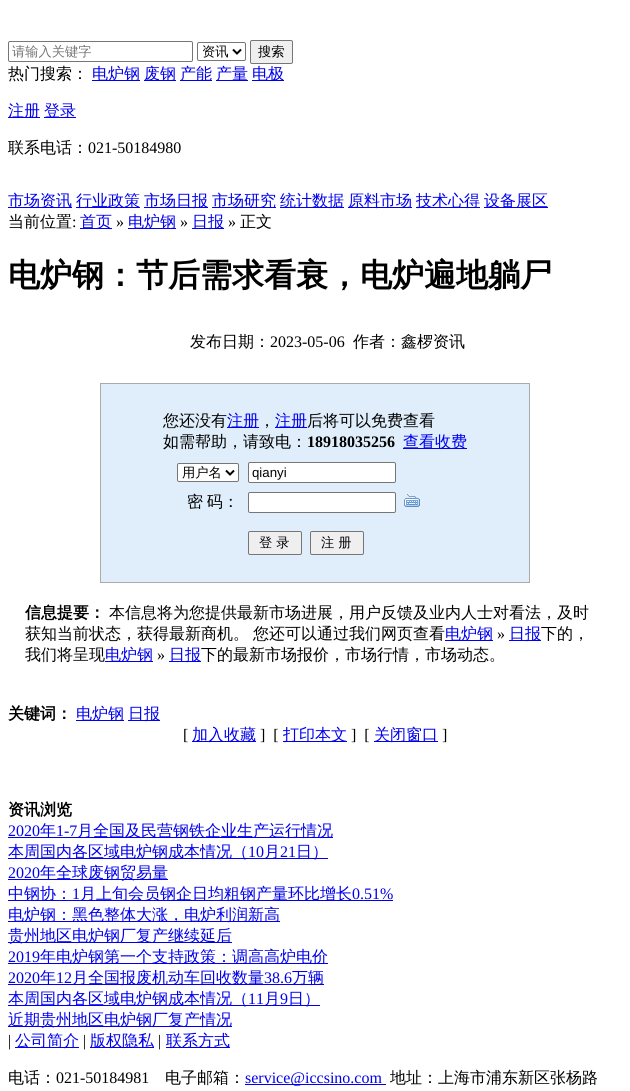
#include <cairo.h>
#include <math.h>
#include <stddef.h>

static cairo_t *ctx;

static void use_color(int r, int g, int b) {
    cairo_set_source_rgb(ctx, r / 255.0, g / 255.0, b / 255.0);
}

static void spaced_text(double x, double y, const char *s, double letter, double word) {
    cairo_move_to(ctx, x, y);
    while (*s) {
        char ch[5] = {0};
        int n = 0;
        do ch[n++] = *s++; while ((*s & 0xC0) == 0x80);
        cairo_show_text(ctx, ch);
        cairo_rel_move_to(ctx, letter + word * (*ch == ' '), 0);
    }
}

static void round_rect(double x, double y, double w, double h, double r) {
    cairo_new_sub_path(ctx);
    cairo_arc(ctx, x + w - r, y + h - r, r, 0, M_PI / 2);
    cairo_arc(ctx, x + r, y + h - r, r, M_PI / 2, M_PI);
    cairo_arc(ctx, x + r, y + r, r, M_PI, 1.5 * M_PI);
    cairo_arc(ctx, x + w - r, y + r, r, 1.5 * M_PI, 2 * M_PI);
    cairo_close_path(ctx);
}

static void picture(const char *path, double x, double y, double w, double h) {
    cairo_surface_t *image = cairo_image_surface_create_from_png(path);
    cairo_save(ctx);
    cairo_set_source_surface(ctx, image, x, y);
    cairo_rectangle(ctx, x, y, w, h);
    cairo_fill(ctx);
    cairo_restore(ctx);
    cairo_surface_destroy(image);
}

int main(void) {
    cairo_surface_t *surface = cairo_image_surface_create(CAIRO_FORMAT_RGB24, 630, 1091);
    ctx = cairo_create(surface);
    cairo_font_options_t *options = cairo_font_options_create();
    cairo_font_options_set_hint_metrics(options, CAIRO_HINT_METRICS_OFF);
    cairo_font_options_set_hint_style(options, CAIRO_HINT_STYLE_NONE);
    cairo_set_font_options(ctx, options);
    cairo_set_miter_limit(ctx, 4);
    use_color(255, 255, 255);
    cairo_paint(ctx);
    round_rect(8.5, 41.5, 184, 20, 1.5);
    use_color(118, 118, 118);
    cairo_set_line_width(ctx, 1);
    cairo_stroke(ctx);
    cairo_select_font_face(ctx, "WenQuanYi Zen Hei Medium", CAIRO_FONT_SLANT_NORMAL, CAIRO_FONT_WEIGHT_NORMAL);
    cairo_set_font_size(ctx, 13.25);
    use_color(117, 117, 117);
    cairo_move_to(ctx, 12, 56);
    cairo_show_text(ctx, "请输入关键字");
    round_rect(197.5, 42.5, 48, 18, 1.5);
    use_color(118, 118, 118);
    cairo_stroke(ctx);
    cairo_new_path(ctx);
    cairo_move_to(ctx, 233, 49.5);
    cairo_line_to(ctx, 237, 53.5);
    cairo_line_to(ctx, 241, 49.5);
    use_color(0, 0, 0);
    cairo_set_line_width(ctx, 2);
    cairo_stroke(ctx);
    cairo_move_to(ctx, 202, 56);
    cairo_show_text(ctx, "资讯");
    use_color(239, 239, 239);
    round_rect(250.5, 40.5, 42, 23, 1.5);
    cairo_fill_preserve(ctx);
    use_color(118, 118, 118);
    cairo_set_line_width(ctx, 1);
    cairo_stroke(ctx);
    use_color(0, 0, 0);
    cairo_move_to(ctx, 258, 56);
    cairo_show_text(ctx, "搜索");
    cairo_set_font_size(ctx, 16);
    cairo_move_to(ctx, 8, 79);
    cairo_show_text(ctx, "热门搜索：");
    use_color(0, 0, 238);
    cairo_rectangle(ctx, 92, 80, 48, 1);
    cairo_fill(ctx);
    cairo_move_to(ctx, 92, 79);
    cairo_show_text(ctx, "电炉钢");
    cairo_rectangle(ctx, 144, 80, 32, 1);
    cairo_fill(ctx);
    cairo_move_to(ctx, 144, 79);
    cairo_show_text(ctx, "废钢");
    cairo_rectangle(ctx, 180, 80, 32, 1);
    cairo_fill(ctx);
    cairo_move_to(ctx, 180, 79);
    cairo_show_text(ctx, "产能");
    cairo_rectangle(ctx, 216, 80, 32, 1);
    cairo_fill(ctx);
    cairo_move_to(ctx, 216, 79);
    cairo_show_text(ctx, "产量");
    cairo_rectangle(ctx, 252, 80, 32, 1);
    cairo_fill(ctx);
    cairo_move_to(ctx, 252, 79);
    cairo_show_text(ctx, "电极");
    cairo_rectangle(ctx, 8, 117, 32, 1);
    cairo_fill(ctx);
    cairo_move_to(ctx, 8, 116);
    cairo_show_text(ctx, "注册");
    cairo_rectangle(ctx, 44, 117, 32, 1);
    cairo_fill(ctx);
    cairo_move_to(ctx, 44, 116);
    cairo_show_text(ctx, "登录");
    use_color(0, 0, 0);
    cairo_move_to(ctx, 8, 153);
    cairo_show_text(ctx, "联系电话：");
    cairo_select_font_face(ctx, "Liberation Serif", CAIRO_FONT_SLANT_NORMAL, CAIRO_FONT_WEIGHT_NORMAL);
    cairo_move_to(ctx, 88, 153);
    cairo_show_text(ctx, "021-50184980");
    use_color(0, 0, 238);
    cairo_rectangle(ctx, 8, 207, 64, 1);
    cairo_fill(ctx);
    cairo_select_font_face(ctx, "WenQuanYi Zen Hei Medium", CAIRO_FONT_SLANT_NORMAL, CAIRO_FONT_WEIGHT_NORMAL);
    cairo_move_to(ctx, 8, 206);
    cairo_show_text(ctx, "市场资讯");
    cairo_rectangle(ctx, 76, 207, 64, 1);
    cairo_fill(ctx);
    cairo_move_to(ctx, 76, 206);
    cairo_show_text(ctx, "行业政策");
    cairo_rectangle(ctx, 144, 207, 64, 1);
    cairo_fill(ctx);
    cairo_move_to(ctx, 144, 206);
    cairo_show_text(ctx, "市场日报");
    cairo_rectangle(ctx, 212, 207, 64, 1);
    cairo_fill(ctx);
    cairo_move_to(ctx, 212, 206);
    cairo_show_text(ctx, "市场研究");
    cairo_rectangle(ctx, 280, 207, 64, 1);
    cairo_fill(ctx);
    cairo_move_to(ctx, 280, 206);
    cairo_show_text(ctx, "统计数据");
    cairo_rectangle(ctx, 348, 207, 64, 1);
    cairo_fill(ctx);
    cairo_move_to(ctx, 348, 206);
    cairo_show_text(ctx, "原料市场");
    cairo_rectangle(ctx, 416, 207, 64, 1);
    cairo_fill(ctx);
    cairo_move_to(ctx, 416, 206);
    cairo_show_text(ctx, "技术心得");
    cairo_rectangle(ctx, 484, 207, 64, 1);
    cairo_fill(ctx);
    cairo_move_to(ctx, 484, 206);
    cairo_show_text(ctx, "设备展区");
    use_color(0, 0, 0);
    cairo_move_to(ctx, 8, 227);
    cairo_show_text(ctx, "当前位置");
    cairo_select_font_face(ctx, "Liberation Serif", CAIRO_FONT_SLANT_NORMAL, CAIRO_FONT_WEIGHT_NORMAL);
    cairo_move_to(ctx, 72, 227);
    cairo_show_text(ctx, ":");
    use_color(0, 0, 238);
    cairo_rectangle(ctx, 80, 228, 32, 1);
    cairo_fill(ctx);
    cairo_select_font_face(ctx, "WenQuanYi Zen Hei Medium", CAIRO_FONT_SLANT_NORMAL, CAIRO_FONT_WEIGHT_NORMAL);
    cairo_move_to(ctx, 80, 227);
    cairo_show_text(ctx, "首页");
    cairo_select_font_face(ctx, "Liberation Serif", CAIRO_FONT_SLANT_NORMAL, CAIRO_FONT_WEIGHT_NORMAL);
    use_color(0, 0, 0);
    cairo_move_to(ctx, 116, 227);
    cairo_show_text(ctx, "»");
    use_color(0, 0, 238);
    cairo_rectangle(ctx, 128, 228, 48, 1);
    cairo_fill(ctx);
    cairo_select_font_face(ctx, "WenQuanYi Zen Hei Medium", CAIRO_FONT_SLANT_NORMAL, CAIRO_FONT_WEIGHT_NORMAL);
    cairo_move_to(ctx, 128, 227);
    cairo_show_text(ctx, "电炉钢");
    cairo_select_font_face(ctx, "Liberation Serif", CAIRO_FONT_SLANT_NORMAL, CAIRO_FONT_WEIGHT_NORMAL);
    use_color(0, 0, 0);
    cairo_move_to(ctx, 180, 227);
    cairo_show_text(ctx, "»");
    use_color(0, 0, 238);
    cairo_rectangle(ctx, 192, 228, 32, 1);
    cairo_fill(ctx);
    cairo_select_font_face(ctx, "WenQuanYi Zen Hei Medium", CAIRO_FONT_SLANT_NORMAL, CAIRO_FONT_WEIGHT_NORMAL);
    cairo_move_to(ctx, 192, 227);
    cairo_show_text(ctx, "日报");
    cairo_select_font_face(ctx, "Liberation Serif", CAIRO_FONT_SLANT_NORMAL, CAIRO_FONT_WEIGHT_NORMAL);
    use_color(0, 0, 0);
    cairo_move_to(ctx, 228, 227);
    cairo_show_text(ctx, "»");
    cairo_select_font_face(ctx, "WenQuanYi Zen Hei Medium", CAIRO_FONT_SLANT_NORMAL, CAIRO_FONT_WEIGHT_NORMAL);
    cairo_move_to(ctx, 240, 227);
    cairo_show_text(ctx, "正文");
    cairo_select_font_face(ctx, "WenQuanYi Zen Hei", CAIRO_FONT_SLANT_NORMAL, CAIRO_FONT_WEIGHT_BOLD);
    cairo_set_font_size(ctx, 32);
    cairo_move_to(ctx, 8, 286);
    cairo_show_text(ctx, "电炉钢：节后需求看衰，电炉遍地躺尸");
    cairo_select_font_face(ctx, "WenQuanYi Zen Hei Medium", CAIRO_FONT_SLANT_NORMAL, CAIRO_FONT_WEIGHT_NORMAL);
    cairo_set_font_size(ctx, 16);
    cairo_move_to(ctx, 190, 347);
    cairo_show_text(ctx, "发布日期：");
    cairo_select_font_face(ctx, "Liberation Serif", CAIRO_FONT_SLANT_NORMAL, CAIRO_FONT_WEIGHT_NORMAL);
    cairo_move_to(ctx, 270, 347);
    cairo_show_text(ctx, "2023-05-06");
    cairo_select_font_face(ctx, "WenQuanYi Zen Hei Medium", CAIRO_FONT_SLANT_NORMAL, CAIRO_FONT_WEIGHT_NORMAL);
    cairo_move_to(ctx, 353, 347);
    cairo_show_text(ctx, "作者：鑫椤资讯");
    use_color(170, 170, 170);
    cairo_rectangle(ctx, 100, 383, 430, 200);
    cairo_fill(ctx);
    use_color(223, 238, 250);
    cairo_rectangle(ctx, 101, 384, 428, 198);
    cairo_fill(ctx);
    use_color(0, 0, 0);
    cairo_move_to(ctx, 163, 426);
    cairo_show_text(ctx, "您还没有");
    use_color(0, 0, 238);
    cairo_rectangle(ctx, 227, 427, 32, 1);
    cairo_fill(ctx);
    cairo_move_to(ctx, 227, 426);
    cairo_show_text(ctx, "注册");
    use_color(0, 0, 0);
    cairo_move_to(ctx, 259, 426);
    cairo_show_text(ctx, "，");
    use_color(0, 0, 238);
    cairo_rectangle(ctx, 275, 427, 32, 1);
    cairo_fill(ctx);
    cairo_move_to(ctx, 275, 426);
    cairo_show_text(ctx, "注册");
    use_color(0, 0, 0);
    cairo_move_to(ctx, 307, 426);
    cairo_show_text(ctx, "后将可以免费查看");
    cairo_move_to(ctx, 163, 447);
    cairo_show_text(ctx, "如需帮助，请致电：");
    cairo_select_font_face(ctx, "Liberation Serif", CAIRO_FONT_SLANT_NORMAL, CAIRO_FONT_WEIGHT_BOLD);
    cairo_move_to(ctx, 307, 447);
    cairo_show_text(ctx, "18918035256");
    use_color(0, 0, 238);
    cairo_rectangle(ctx, 403, 448, 64, 1);
    cairo_fill(ctx);
    cairo_select_font_face(ctx, "WenQuanYi Zen Hei Medium", CAIRO_FONT_SLANT_NORMAL, CAIRO_FONT_WEIGHT_NORMAL);
    cairo_move_to(ctx, 403, 447);
    cairo_show_text(ctx, "查看收费");
    use_color(255, 255, 255);
    round_rect(177.5, 463.5, 61, 18, 1.5);
    cairo_fill_preserve(ctx);
    use_color(118, 118, 118);
    cairo_stroke(ctx);
    cairo_new_path(ctx);
    cairo_move_to(ctx, 226, 470.5);
    cairo_line_to(ctx, 230, 474.5);
    cairo_line_to(ctx, 234, 470.5);
    use_color(0, 0, 0);
    cairo_set_line_width(ctx, 2);
    cairo_stroke(ctx);
    cairo_set_font_size(ctx, 13.25);
    cairo_move_to(ctx, 182, 477);
    cairo_show_text(ctx, "用户名");
    use_color(255, 255, 255);
    round_rect(248.5, 462.5, 147, 20, 1.5);
    cairo_fill_preserve(ctx);
    use_color(118, 118, 118);
    cairo_set_line_width(ctx, 1);
    cairo_stroke(ctx);
    cairo_select_font_face(ctx, "Liberation Sans", CAIRO_FONT_SLANT_NORMAL, CAIRO_FONT_WEIGHT_NORMAL);
    use_color(0, 0, 0);
    cairo_move_to(ctx, 252, 477);
    cairo_show_text(ctx, "qianyi");
    cairo_select_font_face(ctx, "WenQuanYi Zen Hei Medium", CAIRO_FONT_SLANT_NORMAL, CAIRO_FONT_WEIGHT_NORMAL);
    cairo_set_font_size(ctx, 16);
    spaced_text(187, 507, "密 码：", 0, -1);
    use_color(255, 255, 255);
    round_rect(248.5, 492.5, 147, 20, 1.5);
    cairo_fill_preserve(ctx);
    use_color(118, 118, 118);
    cairo_stroke(ctx);
    picture("img1.png", 404, 494, 16, 13);
    use_color(239, 239, 239);
    round_rect(248.5, 531.5, 53, 23, 1.5);
    cairo_fill_preserve(ctx);
    use_color(118, 118, 118);
    cairo_stroke(ctx);
    cairo_set_font_size(ctx, 13.25);
    use_color(0, 0, 0);
    cairo_move_to(ctx, 259, 547);
    cairo_show_text(ctx, "登 录");
    use_color(239, 239, 239);
    round_rect(310.5, 531.5, 53, 23, 1.5);
    cairo_fill_preserve(ctx);
    use_color(118, 118, 118);
    cairo_stroke(ctx);
    use_color(0, 0, 0);
    cairo_move_to(ctx, 321, 547);
    cairo_show_text(ctx, "注 册");
    cairo_select_font_face(ctx, "WenQuanYi Zen Hei", CAIRO_FONT_SLANT_NORMAL, CAIRO_FONT_WEIGHT_BOLD);
    cairo_set_font_size(ctx, 16);
    cairo_move_to(ctx, 25, 618);
    cairo_show_text(ctx, "信息提要：");
    cairo_select_font_face(ctx, "WenQuanYi Zen Hei Medium", CAIRO_FONT_SLANT_NORMAL, CAIRO_FONT_WEIGHT_NORMAL);
    cairo_move_to(ctx, 109, 618);
    cairo_show_text(ctx, "本信息将为您提供最新市场进展，用户反馈及业内人士对看法，及时");
    cairo_move_to(ctx, 25, 639);
    cairo_show_text(ctx, "获知当前状态，获得最新商机。");
    cairo_move_to(ctx, 253, 639);
    cairo_show_text(ctx, "您还可以通过我们网页查看");
    use_color(0, 0, 238);
    cairo_rectangle(ctx, 445, 640, 48, 1);
    cairo_fill(ctx);
    cairo_move_to(ctx, 445, 639);
    cairo_show_text(ctx, "电炉钢");
    cairo_select_font_face(ctx, "Liberation Serif", CAIRO_FONT_SLANT_NORMAL, CAIRO_FONT_WEIGHT_NORMAL);
    use_color(0, 0, 0);
    cairo_move_to(ctx, 497, 639);
    cairo_show_text(ctx, "»");
    use_color(0, 0, 238);
    cairo_rectangle(ctx, 509, 640, 32, 1);
    cairo_fill(ctx);
    cairo_select_font_face(ctx, "WenQuanYi Zen Hei Medium", CAIRO_FONT_SLANT_NORMAL, CAIRO_FONT_WEIGHT_NORMAL);
    cairo_move_to(ctx, 509, 639);
    cairo_show_text(ctx, "日报");
    use_color(0, 0, 0);
    cairo_move_to(ctx, 541, 639);
    cairo_show_text(ctx, "下的，");
    cairo_move_to(ctx, 25, 660);
    cairo_show_text(ctx, "我们将呈现");
    use_color(0, 0, 238);
    cairo_rectangle(ctx, 105, 661, 48, 1);
    cairo_fill(ctx);
    cairo_move_to(ctx, 105, 660);
    cairo_show_text(ctx, "电炉钢");
    cairo_select_font_face(ctx, "Liberation Serif", CAIRO_FONT_SLANT_NORMAL, CAIRO_FONT_WEIGHT_NORMAL);
    use_color(0, 0, 0);
    cairo_move_to(ctx, 157, 660);
    cairo_show_text(ctx, "»");
    use_color(0, 0, 238);
    cairo_rectangle(ctx, 169, 661, 32, 1);
    cairo_fill(ctx);
    cairo_select_font_face(ctx, "WenQuanYi Zen Hei Medium", CAIRO_FONT_SLANT_NORMAL, CAIRO_FONT_WEIGHT_NORMAL);
    cairo_move_to(ctx, 169, 660);
    cairo_show_text(ctx, "日报");
    use_color(0, 0, 0);
    cairo_move_to(ctx, 201, 660);
    cairo_show_text(ctx, "下的最新市场报价，市场行情，市场动态。");
    cairo_select_font_face(ctx, "WenQuanYi Zen Hei", CAIRO_FONT_SLANT_NORMAL, CAIRO_FONT_WEIGHT_BOLD);
    cairo_move_to(ctx, 8, 719);
    cairo_show_text(ctx, "关键词：");
    use_color(0, 0, 238);
    cairo_rectangle(ctx, 76, 720, 48, 1);
    cairo_fill(ctx);
    cairo_select_font_face(ctx, "WenQuanYi Zen Hei Medium", CAIRO_FONT_SLANT_NORMAL, CAIRO_FONT_WEIGHT_NORMAL);
    cairo_move_to(ctx, 76, 719);
    cairo_show_text(ctx, "电炉钢");
    cairo_rectangle(ctx, 128, 720, 32, 1);
    cairo_fill(ctx);
    cairo_move_to(ctx, 128, 719);
    cairo_show_text(ctx, "日报");
    cairo_select_font_face(ctx, "Liberation Serif", CAIRO_FONT_SLANT_NORMAL, CAIRO_FONT_WEIGHT_NORMAL);
    use_color(0, 0, 0);
    cairo_move_to(ctx, 183, 740);
    cairo_show_text(ctx, "[");
    use_color(0, 0, 238);
    cairo_rectangle(ctx, 192, 741, 64, 1);
    cairo_fill(ctx);
    cairo_select_font_face(ctx, "WenQuanYi Zen Hei Medium", CAIRO_FONT_SLANT_NORMAL, CAIRO_FONT_WEIGHT_NORMAL);
    cairo_move_to(ctx, 192, 740);
    cairo_show_text(ctx, "加入收藏");
    cairo_select_font_face(ctx, "Liberation Serif", CAIRO_FONT_SLANT_NORMAL, CAIRO_FONT_WEIGHT_NORMAL);
    use_color(0, 0, 0);
    cairo_move_to(ctx, 260, 740);
    cairo_show_text(ctx, "]  [");
    use_color(0, 0, 238);
    cairo_rectangle(ctx, 283, 741, 64, 1);
    cairo_fill(ctx);
    cairo_select_font_face(ctx, "WenQuanYi Zen Hei Medium", CAIRO_FONT_SLANT_NORMAL, CAIRO_FONT_WEIGHT_NORMAL);
    cairo_move_to(ctx, 283, 740);
    cairo_show_text(ctx, "打印本文");
    cairo_select_font_face(ctx, "Liberation Serif", CAIRO_FONT_SLANT_NORMAL, CAIRO_FONT_WEIGHT_NORMAL);
    use_color(0, 0, 0);
    cairo_move_to(ctx, 351, 740);
    cairo_show_text(ctx, "]  [");
    use_color(0, 0, 238);
    cairo_rectangle(ctx, 374, 741, 64, 1);
    cairo_fill(ctx);
    cairo_select_font_face(ctx, "WenQuanYi Zen Hei Medium", CAIRO_FONT_SLANT_NORMAL, CAIRO_FONT_WEIGHT_NORMAL);
    cairo_move_to(ctx, 374, 740);
    cairo_show_text(ctx, "关闭窗口");
    cairo_select_font_face(ctx, "Liberation Serif", CAIRO_FONT_SLANT_NORMAL, CAIRO_FONT_WEIGHT_NORMAL);
    use_color(0, 0, 0);
    cairo_move_to(ctx, 442, 740);
    cairo_show_text(ctx, "]");
    cairo_select_font_face(ctx, "WenQuanYi Zen Hei", CAIRO_FONT_SLANT_NORMAL, CAIRO_FONT_WEIGHT_BOLD);
    cairo_move_to(ctx, 8, 815);
    cairo_show_text(ctx, "资讯浏览");
    cairo_select_font_face(ctx, "Liberation Serif", CAIRO_FONT_SLANT_NORMAL, CAIRO_FONT_WEIGHT_NORMAL);
    use_color(0, 0, 238);
    cairo_move_to(ctx, 8, 836);
    cairo_show_text(ctx, "2020");
    cairo_rectangle(ctx, 8, 837, 325, 1);
    cairo_fill(ctx);
    cairo_select_font_face(ctx, "WenQuanYi Zen Hei Medium", CAIRO_FONT_SLANT_NORMAL, CAIRO_FONT_WEIGHT_NORMAL);
    cairo_move_to(ctx, 40, 836);
    cairo_show_text(ctx, "年");
    cairo_select_font_face(ctx, "Liberation Serif", CAIRO_FONT_SLANT_NORMAL, CAIRO_FONT_WEIGHT_NORMAL);
    cairo_move_to(ctx, 56, 836);
    cairo_show_text(ctx, "1-7");
    cairo_select_font_face(ctx, "WenQuanYi Zen Hei Medium", CAIRO_FONT_SLANT_NORMAL, CAIRO_FONT_WEIGHT_NORMAL);
    cairo_move_to(ctx, 77, 836);
    cairo_show_text(ctx, "月全国及民营钢铁企业生产运行情况");
    cairo_rectangle(ctx, 8, 858, 320, 1);
    cairo_fill(ctx);
    cairo_move_to(ctx, 8, 857);
    cairo_show_text(ctx, "本周国内各区域电炉钢成本情况（");
    cairo_select_font_face(ctx, "Liberation Serif", CAIRO_FONT_SLANT_NORMAL, CAIRO_FONT_WEIGHT_NORMAL);
    cairo_move_to(ctx, 248, 857);
    cairo_show_text(ctx, "10");
    cairo_select_font_face(ctx, "WenQuanYi Zen Hei Medium", CAIRO_FONT_SLANT_NORMAL, CAIRO_FONT_WEIGHT_NORMAL);
    cairo_move_to(ctx, 264, 857);
    cairo_show_text(ctx, "月");
    cairo_select_font_face(ctx, "Liberation Serif", CAIRO_FONT_SLANT_NORMAL, CAIRO_FONT_WEIGHT_NORMAL);
    cairo_move_to(ctx, 280, 857);
    cairo_show_text(ctx, "21");
    cairo_select_font_face(ctx, "WenQuanYi Zen Hei Medium", CAIRO_FONT_SLANT_NORMAL, CAIRO_FONT_WEIGHT_NORMAL);
    cairo_move_to(ctx, 296, 857);
    cairo_show_text(ctx, "日）");
    cairo_select_font_face(ctx, "Liberation Serif", CAIRO_FONT_SLANT_NORMAL, CAIRO_FONT_WEIGHT_NORMAL);
    cairo_move_to(ctx, 8, 878);
    cairo_show_text(ctx, "2020");
    cairo_rectangle(ctx, 8, 879, 160, 1);
    cairo_fill(ctx);
    cairo_select_font_face(ctx, "WenQuanYi Zen Hei Medium", CAIRO_FONT_SLANT_NORMAL, CAIRO_FONT_WEIGHT_NORMAL);
    cairo_move_to(ctx, 40, 878);
    cairo_show_text(ctx, "年全球废钢贸易量");
    cairo_rectangle(ctx, 8, 900, 385, 1);
    cairo_fill(ctx);
    cairo_move_to(ctx, 8, 899);
    cairo_show_text(ctx, "中钢协：");
    cairo_select_font_face(ctx, "Liberation Serif", CAIRO_FONT_SLANT_NORMAL, CAIRO_FONT_WEIGHT_NORMAL);
    cairo_move_to(ctx, 72, 899);
    cairo_show_text(ctx, "1");
    cairo_select_font_face(ctx, "WenQuanYi Zen Hei Medium", CAIRO_FONT_SLANT_NORMAL, CAIRO_FONT_WEIGHT_NORMAL);
    cairo_move_to(ctx, 80, 899);
    cairo_show_text(ctx, "月上旬会员钢企日均粗钢产量环比增长");
    cairo_select_font_face(ctx, "Liberation Serif", CAIRO_FONT_SLANT_NORMAL, CAIRO_FONT_WEIGHT_NORMAL);
    cairo_move_to(ctx, 352, 899);
    cairo_show_text(ctx, "0.51%");
    cairo_rectangle(ctx, 8, 921, 272, 1);
    cairo_fill(ctx);
    cairo_select_font_face(ctx, "WenQuanYi Zen Hei Medium", CAIRO_FONT_SLANT_NORMAL, CAIRO_FONT_WEIGHT_NORMAL);
    cairo_move_to(ctx, 8, 920);
    cairo_show_text(ctx, "电炉钢：黑色整体大涨，电炉利润新高");
    cairo_rectangle(ctx, 8, 942, 224, 1);
    cairo_fill(ctx);
    cairo_move_to(ctx, 8, 941);
    cairo_show_text(ctx, "贵州地区电炉钢厂复产继续延后");
    cairo_select_font_face(ctx, "Liberation Serif", CAIRO_FONT_SLANT_NORMAL, CAIRO_FONT_WEIGHT_NORMAL);
    cairo_move_to(ctx, 8, 962);
    cairo_show_text(ctx, "2019");
    cairo_rectangle(ctx, 8, 963, 320, 1);
    cairo_fill(ctx);
    cairo_select_font_face(ctx, "WenQuanYi Zen Hei Medium", CAIRO_FONT_SLANT_NORMAL, CAIRO_FONT_WEIGHT_NORMAL);
    cairo_move_to(ctx, 40, 962);
    cairo_show_text(ctx, "年电炉钢第一个支持政策：调高高炉电价");
    cairo_select_font_face(ctx, "Liberation Serif", CAIRO_FONT_SLANT_NORMAL, CAIRO_FONT_WEIGHT_NORMAL);
    cairo_move_to(ctx, 8, 983);
    cairo_show_text(ctx, "2020");
    cairo_rectangle(ctx, 8, 984, 316, 1);
    cairo_fill(ctx);
    cairo_select_font_face(ctx, "WenQuanYi Zen Hei Medium", CAIRO_FONT_SLANT_NORMAL, CAIRO_FONT_WEIGHT_NORMAL);
    cairo_move_to(ctx, 40, 983);
    cairo_show_text(ctx, "年");
    cairo_select_font_face(ctx, "Liberation Serif", CAIRO_FONT_SLANT_NORMAL, CAIRO_FONT_WEIGHT_NORMAL);
    cairo_move_to(ctx, 56, 983);
    cairo_show_text(ctx, "12");
    cairo_select_font_face(ctx, "WenQuanYi Zen Hei Medium", CAIRO_FONT_SLANT_NORMAL, CAIRO_FONT_WEIGHT_NORMAL);
    cairo_move_to(ctx, 72, 983);
    cairo_show_text(ctx, "月全国报废机动车回收数量");
    cairo_select_font_face(ctx, "Liberation Serif", CAIRO_FONT_SLANT_NORMAL, CAIRO_FONT_WEIGHT_NORMAL);
    cairo_move_to(ctx, 264, 983);
    cairo_show_text(ctx, "38.6");
    cairo_select_font_face(ctx, "WenQuanYi Zen Hei Medium", CAIRO_FONT_SLANT_NORMAL, CAIRO_FONT_WEIGHT_NORMAL);
    cairo_move_to(ctx, 292, 983);
    cairo_show_text(ctx, "万辆");
    cairo_rectangle(ctx, 8, 1005, 312, 1);
    cairo_fill(ctx);
    cairo_move_to(ctx, 8, 1004);
    cairo_show_text(ctx, "本周国内各区域电炉钢成本情况（");
    cairo_select_font_face(ctx, "Liberation Serif", CAIRO_FONT_SLANT_NORMAL, CAIRO_FONT_WEIGHT_NORMAL);
    cairo_move_to(ctx, 248, 1004);
    cairo_show_text(ctx, "11");
    cairo_select_font_face(ctx, "WenQuanYi Zen Hei Medium", CAIRO_FONT_SLANT_NORMAL, CAIRO_FONT_WEIGHT_NORMAL);
    cairo_move_to(ctx, 264, 1004);
    cairo_show_text(ctx, "月");
    cairo_select_font_face(ctx, "Liberation Serif", CAIRO_FONT_SLANT_NORMAL, CAIRO_FONT_WEIGHT_NORMAL);
    cairo_move_to(ctx, 280, 1004);
    cairo_show_text(ctx, "9");
    cairo_select_font_face(ctx, "WenQuanYi Zen Hei Medium", CAIRO_FONT_SLANT_NORMAL, CAIRO_FONT_WEIGHT_NORMAL);
    cairo_move_to(ctx, 288, 1004);
    cairo_show_text(ctx, "日）");
    cairo_rectangle(ctx, 8, 1026, 224, 1);
    cairo_fill(ctx);
    cairo_move_to(ctx, 8, 1025);
    cairo_show_text(ctx, "近期贵州地区电炉钢厂复产情况");
    cairo_select_font_face(ctx, "Liberation Serif", CAIRO_FONT_SLANT_NORMAL, CAIRO_FONT_WEIGHT_NORMAL);
    use_color(0, 0, 0);
    cairo_move_to(ctx, 8, 1046);
    cairo_show_text(ctx, "|");
    use_color(0, 0, 238);
    cairo_rectangle(ctx, 15, 1047, 64, 1);
    cairo_fill(ctx);
    cairo_select_font_face(ctx, "WenQuanYi Zen Hei Medium", CAIRO_FONT_SLANT_NORMAL, CAIRO_FONT_WEIGHT_NORMAL);
    cairo_move_to(ctx, 15, 1046);
    cairo_show_text(ctx, "公司简介");
    cairo_select_font_face(ctx, "Liberation Serif", CAIRO_FONT_SLANT_NORMAL, CAIRO_FONT_WEIGHT_NORMAL);
    use_color(0, 0, 0);
    cairo_move_to(ctx, 83, 1046);
    cairo_show_text(ctx, "|");
    use_color(0, 0, 238);
    cairo_rectangle(ctx, 90, 1047, 64, 1);
    cairo_fill(ctx);
    cairo_select_font_face(ctx, "WenQuanYi Zen Hei Medium", CAIRO_FONT_SLANT_NORMAL, CAIRO_FONT_WEIGHT_NORMAL);
    cairo_move_to(ctx, 90, 1046);
    cairo_show_text(ctx, "版权隐私");
    cairo_select_font_face(ctx, "Liberation Serif", CAIRO_FONT_SLANT_NORMAL, CAIRO_FONT_WEIGHT_NORMAL);
    use_color(0, 0, 0);
    cairo_move_to(ctx, 158, 1046);
    cairo_show_text(ctx, "|");
    use_color(0, 0, 238);
    cairo_rectangle(ctx, 166, 1047, 64, 1);
    cairo_fill(ctx);
    cairo_select_font_face(ctx, "WenQuanYi Zen Hei Medium", CAIRO_FONT_SLANT_NORMAL, CAIRO_FONT_WEIGHT_NORMAL);
    cairo_move_to(ctx, 166, 1046);
    cairo_show_text(ctx, "联系方式");
    use_color(0, 0, 0);
    cairo_move_to(ctx, 8, 1083);
    cairo_show_text(ctx, "电话：");
    cairo_select_font_face(ctx, "Liberation Serif", CAIRO_FONT_SLANT_NORMAL, CAIRO_FONT_WEIGHT_NORMAL);
    cairo_move_to(ctx, 56, 1083);
    cairo_show_text(ctx, "021-50184981");
    cairo_select_font_face(ctx, "WenQuanYi Zen Hei Medium", CAIRO_FONT_SLANT_NORMAL, CAIRO_FONT_WEIGHT_NORMAL);
    cairo_move_to(ctx, 165, 1083);
    cairo_show_text(ctx, "电子邮箱：");
    use_color(0, 0, 238);
    cairo_rectangle(ctx, 245, 1084, 141, 1);
    cairo_fill(ctx);
    cairo_select_font_face(ctx, "Liberation Serif", CAIRO_FONT_SLANT_NORMAL, CAIRO_FONT_WEIGHT_NORMAL);
    cairo_move_to(ctx, 245, 1083);
    cairo_show_text(ctx, "service@iccsino.com");
    cairo_select_font_face(ctx, "WenQuanYi Zen Hei Medium", CAIRO_FONT_SLANT_NORMAL, CAIRO_FONT_WEIGHT_NORMAL);
    use_color(0, 0, 0);
    cairo_move_to(ctx, 390, 1083);
    cairo_show_text(ctx, "地址：上海市浦东新区张杨路");
    cairo_surface_write_to_png(surface, "result.png");
    cairo_font_options_destroy(options);
    cairo_destroy(ctx);
    cairo_surface_destroy(surface);
    return 0;
}
